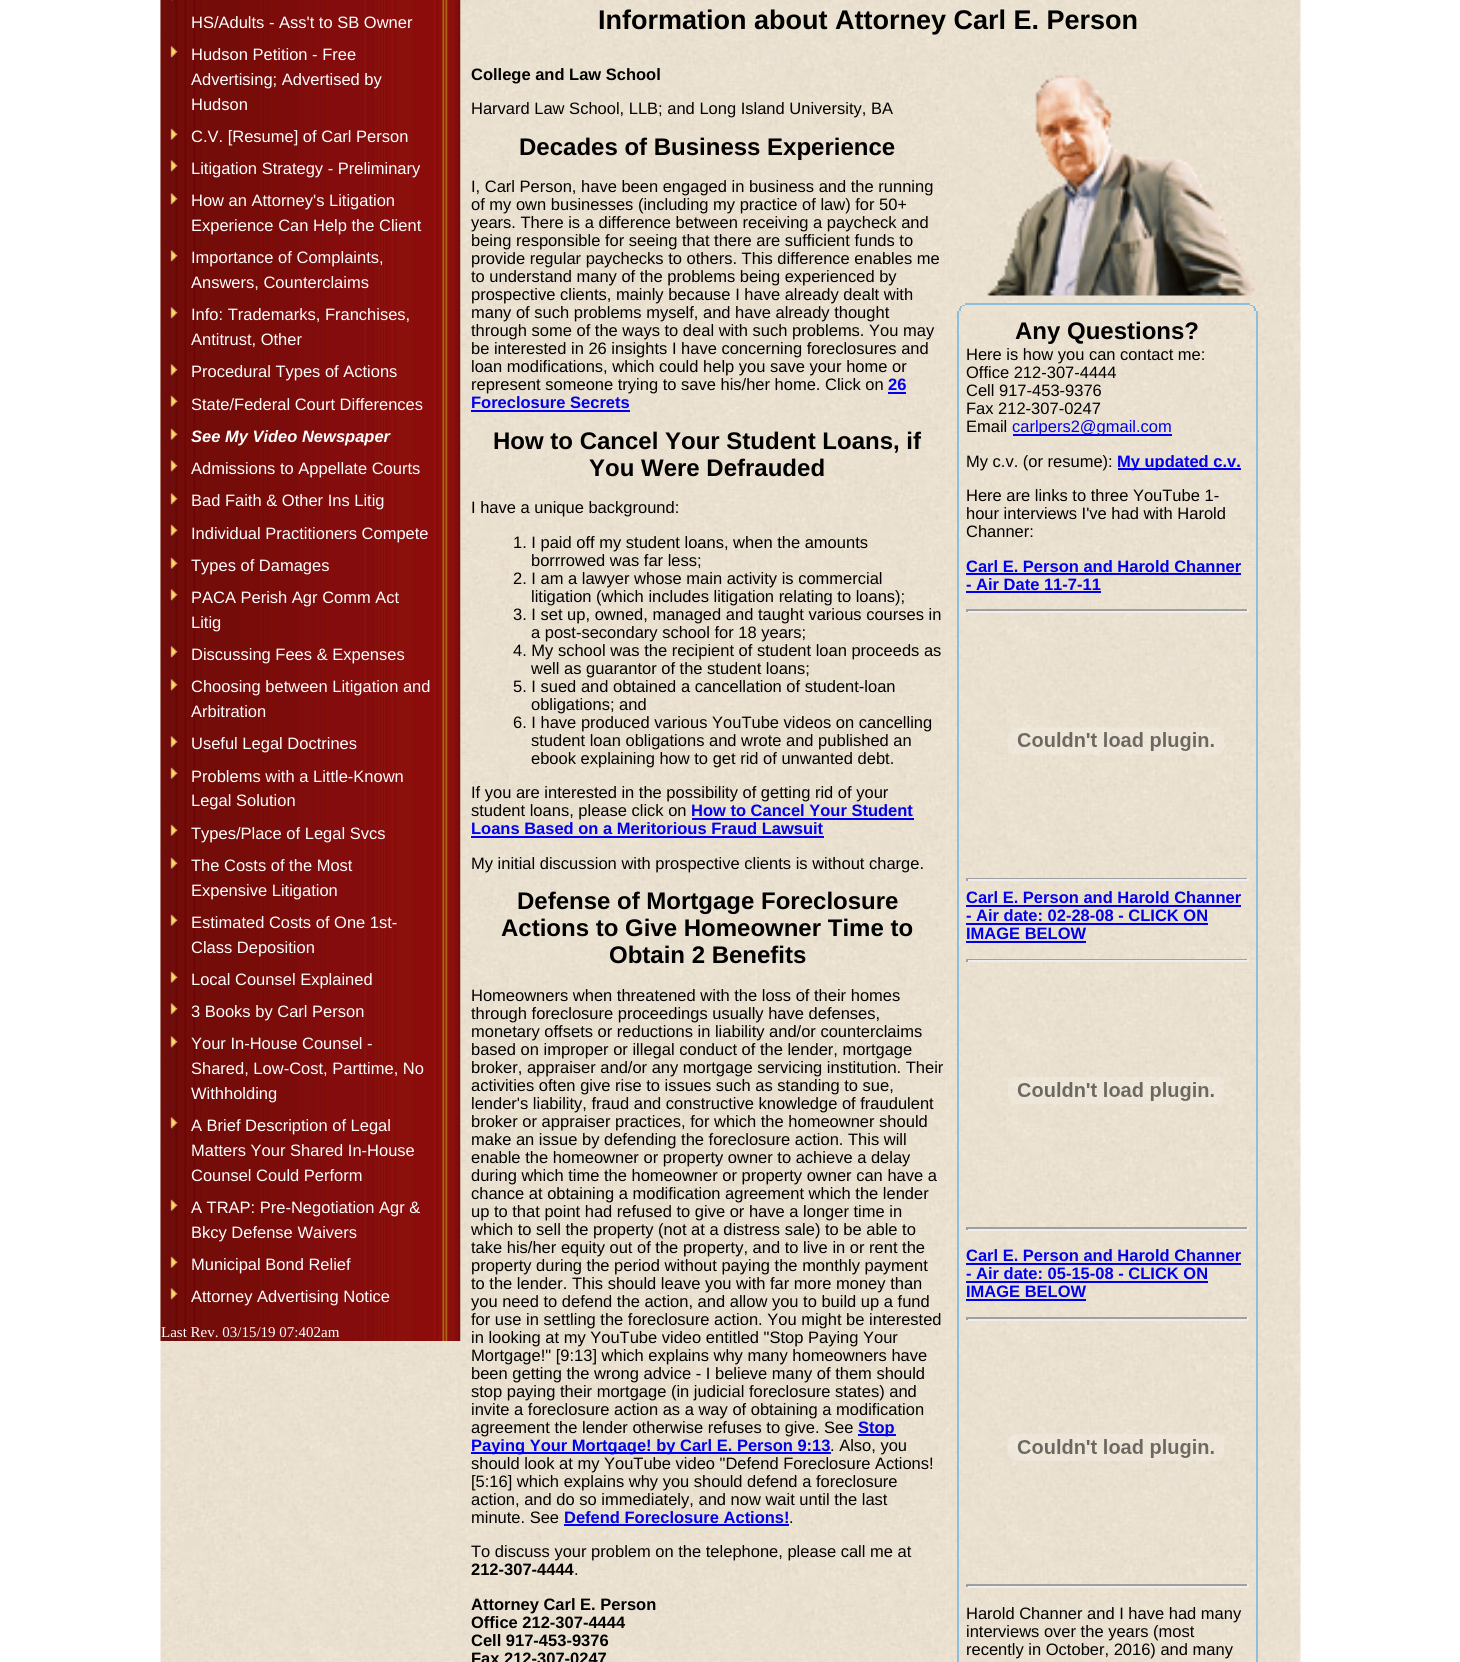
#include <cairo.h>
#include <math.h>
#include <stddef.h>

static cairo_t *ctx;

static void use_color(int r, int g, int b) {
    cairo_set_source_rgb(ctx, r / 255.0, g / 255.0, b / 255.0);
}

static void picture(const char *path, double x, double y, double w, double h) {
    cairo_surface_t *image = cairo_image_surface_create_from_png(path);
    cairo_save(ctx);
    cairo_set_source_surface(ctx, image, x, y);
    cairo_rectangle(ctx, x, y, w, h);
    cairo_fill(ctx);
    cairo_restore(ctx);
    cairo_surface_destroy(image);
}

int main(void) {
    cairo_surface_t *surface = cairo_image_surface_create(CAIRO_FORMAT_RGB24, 1460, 1662);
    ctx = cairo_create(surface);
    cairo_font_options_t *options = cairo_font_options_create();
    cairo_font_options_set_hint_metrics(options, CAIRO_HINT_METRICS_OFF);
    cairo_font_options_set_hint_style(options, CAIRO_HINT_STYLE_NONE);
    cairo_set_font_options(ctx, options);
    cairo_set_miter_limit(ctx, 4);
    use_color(255, 255, 255);
    cairo_paint(ctx);
    picture("img1.png", 160, 0, 1141, 1662);
    picture("img2.png", 160, 0, 301, 1341);
    picture("img3.png", 171, 0, 2, 1);
    cairo_select_font_face(ctx, "Liberation Sans", CAIRO_FONT_SLANT_NORMAL, CAIRO_FONT_WEIGHT_NORMAL);
    cairo_set_font_size(ctx, 16.5);
    use_color(255, 255, 255);
    cairo_move_to(ctx, 191, 28);
    cairo_show_text(ctx, "HS/Adults - Ass't to SB Owner");
    picture("img4.png", 170, 46, 8, 12);
    cairo_move_to(ctx, 191, 60);
    cairo_show_text(ctx, "Hudson Petition - Free");
    cairo_move_to(ctx, 191, 85);
    cairo_show_text(ctx, "Advertising; Advertised by");
    cairo_move_to(ctx, 191, 110);
    cairo_show_text(ctx, "Hudson");
    picture("img5.png", 170, 128, 8, 12);
    cairo_move_to(ctx, 191, 142);
    cairo_show_text(ctx, "C.V. [Resume] of Carl Person");
    picture("img4.png", 170, 160, 8, 12);
    cairo_move_to(ctx, 191, 174);
    cairo_show_text(ctx, "Litigation Strategy - Preliminary");
    picture("img4.png", 170, 193, 8, 12);
    cairo_move_to(ctx, 191, 206);
    cairo_show_text(ctx, "How an Attorney's Litigation");
    cairo_move_to(ctx, 191, 231);
    cairo_show_text(ctx, "Experience Can Help the Client");
    picture("img4.png", 170, 250, 8, 12);
    cairo_move_to(ctx, 191, 263);
    cairo_show_text(ctx, "Importance of Complaints,");
    cairo_move_to(ctx, 191, 288);
    cairo_show_text(ctx, "Answers, Counterclaims");
    picture("img4.png", 170, 307, 8, 12);
    cairo_move_to(ctx, 191, 320);
    cairo_show_text(ctx, "Info: Trademarks, Franchises,");
    cairo_move_to(ctx, 191, 345);
    cairo_show_text(ctx, "Antitrust, Other");
    picture("img4.png", 170, 364, 8, 12);
    cairo_move_to(ctx, 191, 377);
    cairo_show_text(ctx, "Procedural Types of Actions");
    picture("img5.png", 170, 395, 8, 12);
    cairo_move_to(ctx, 191, 410);
    cairo_show_text(ctx, "State/Federal Court Differences");
    picture("img5.png", 170, 428, 8, 12);
    cairo_select_font_face(ctx, "Liberation Sans", CAIRO_FONT_SLANT_ITALIC, CAIRO_FONT_WEIGHT_BOLD);
    cairo_move_to(ctx, 191, 442);
    cairo_show_text(ctx, "See My Video Newspaper");
    picture("img4.png", 170, 460, 8, 12);
    cairo_select_font_face(ctx, "Liberation Sans", CAIRO_FONT_SLANT_NORMAL, CAIRO_FONT_WEIGHT_NORMAL);
    cairo_move_to(ctx, 191, 474);
    cairo_show_text(ctx, "Admissions to Appellate Courts");
    picture("img4.png", 170, 493, 8, 12);
    cairo_move_to(ctx, 191, 506);
    cairo_show_text(ctx, "Bad Faith & Other Ins Litig");
    picture("img5.png", 170, 524, 8, 12);
    cairo_move_to(ctx, 191, 539);
    cairo_show_text(ctx, "Individual Practitioners Compete");
    picture("img5.png", 170, 557, 8, 12);
    cairo_move_to(ctx, 191, 571);
    cairo_show_text(ctx, "Types of Damages");
    picture("img4.png", 170, 589, 8, 12);
    cairo_move_to(ctx, 191, 603);
    cairo_show_text(ctx, "PACA Perish Agr Comm Act");
    cairo_move_to(ctx, 191, 628);
    cairo_show_text(ctx, "Litig");
    picture("img4.png", 170, 646, 8, 12);
    cairo_move_to(ctx, 191, 660);
    cairo_show_text(ctx, "Discussing Fees & Expenses");
    picture("img4.png", 170, 679, 8, 12);
    cairo_move_to(ctx, 191, 692);
    cairo_show_text(ctx, "Choosing between Litigation and");
    cairo_move_to(ctx, 191, 717);
    cairo_show_text(ctx, "Arbitration");
    picture("img4.png", 170, 736, 8, 12);
    cairo_move_to(ctx, 191, 749);
    cairo_show_text(ctx, "Useful Legal Doctrines");
    picture("img5.png", 170, 767, 8, 12);
    cairo_move_to(ctx, 191, 782);
    cairo_show_text(ctx, "Problems with a Little-Known");
    cairo_move_to(ctx, 191, 806);
    cairo_show_text(ctx, "Legal Solution");
    picture("img5.png", 170, 824, 8, 12);
    cairo_move_to(ctx, 191, 839);
    cairo_show_text(ctx, "Types/Place of Legal Svcs");
    picture("img5.png", 170, 857, 8, 12);
    cairo_move_to(ctx, 191, 871);
    cairo_show_text(ctx, "The Costs of the Most");
    cairo_move_to(ctx, 191, 896);
    cairo_show_text(ctx, "Expensive Litigation");
    picture("img5.png", 170, 914, 8, 12);
    cairo_move_to(ctx, 191, 928);
    cairo_show_text(ctx, "Estimated Costs of One 1st-");
    cairo_move_to(ctx, 191, 953);
    cairo_show_text(ctx, "Class Deposition");
    picture("img5.png", 170, 971, 8, 12);
    cairo_move_to(ctx, 191, 985);
    cairo_show_text(ctx, "Local Counsel Explained");
    picture("img4.png", 170, 1003, 8, 12);
    cairo_move_to(ctx, 191, 1017);
    cairo_show_text(ctx, "3 Books by Carl Person");
    picture("img4.png", 170, 1036, 8, 12);
    cairo_move_to(ctx, 191, 1049);
    cairo_show_text(ctx, "Your In-House Counsel -");
    cairo_move_to(ctx, 191, 1074);
    cairo_show_text(ctx, "Shared, Low-Cost, Parttime, No");
    cairo_move_to(ctx, 191, 1099);
    cairo_show_text(ctx, "Withholding");
    picture("img4.png", 170, 1117, 8, 12);
    cairo_move_to(ctx, 191, 1131);
    cairo_show_text(ctx, "A Brief Description of Legal");
    cairo_move_to(ctx, 191, 1156);
    cairo_show_text(ctx, "Matters Your Shared In-House");
    cairo_move_to(ctx, 191, 1181);
    cairo_show_text(ctx, "Counsel Could Perform");
    picture("img5.png", 170, 1199, 8, 12);
    cairo_move_to(ctx, 191, 1213);
    cairo_show_text(ctx, "A TRAP: Pre-Negotiation Agr &");
    cairo_move_to(ctx, 191, 1238);
    cairo_show_text(ctx, "Bkcy Defense Waivers");
    picture("img5.png", 170, 1256, 8, 12);
    cairo_move_to(ctx, 191, 1270);
    cairo_show_text(ctx, "Municipal Bond Relief");
    picture("img4.png", 170, 1288, 8, 12);
    cairo_move_to(ctx, 191, 1302);
    cairo_show_text(ctx, "Attorney Advertising Notice");
    cairo_select_font_face(ctx, "Liberation Serif", CAIRO_FONT_SLANT_NORMAL, CAIRO_FONT_WEIGHT_NORMAL);
    cairo_set_font_size(ctx, 15);
    cairo_move_to(ctx, 161, 1337);
    cairo_show_text(ctx, "Last Rev. 03/15/19 07:402am");
    picture("img6.png", 460, 0, 815, 1662);
    cairo_select_font_face(ctx, "Liberation Sans", CAIRO_FONT_SLANT_NORMAL, CAIRO_FONT_WEIGHT_BOLD);
    cairo_set_font_size(ctx, 27);
    use_color(0, 0, 0);
    cairo_move_to(ctx, 598, 29);
    cairo_show_text(ctx, "Information about Attorney Carl E. Person");
    cairo_set_font_size(ctx, 16.5);
    cairo_move_to(ctx, 471, 80);
    cairo_show_text(ctx, "College and Law School");
    cairo_select_font_face(ctx, "Liberation Sans", CAIRO_FONT_SLANT_NORMAL, CAIRO_FONT_WEIGHT_NORMAL);
    cairo_move_to(ctx, 471, 114);
    cairo_show_text(ctx, "Harvard Law School, LLB; and Long Island University, BA");
    cairo_select_font_face(ctx, "Liberation Sans", CAIRO_FONT_SLANT_NORMAL, CAIRO_FONT_WEIGHT_BOLD);
    cairo_set_font_size(ctx, 24);
    cairo_move_to(ctx, 519, 155);
    cairo_show_text(ctx, "Decades of Business Experience");
    cairo_select_font_face(ctx, "Liberation Sans", CAIRO_FONT_SLANT_NORMAL, CAIRO_FONT_WEIGHT_NORMAL);
    cairo_set_font_size(ctx, 16.5);
    cairo_move_to(ctx, 471, 192);
    cairo_show_text(ctx, "I, Carl Person, have been engaged in business and the running");
    cairo_move_to(ctx, 471, 210);
    cairo_show_text(ctx, "of my own businesses (including my practice of law) for 50+");
    cairo_move_to(ctx, 471, 228);
    cairo_show_text(ctx, "years. There is a difference between receiving a paycheck and");
    cairo_move_to(ctx, 471, 246);
    cairo_show_text(ctx, "being responsible for seeing that there are sufficient funds to");
    cairo_move_to(ctx, 471, 264);
    cairo_show_text(ctx, "provide regular paychecks to others. This difference enables me");
    cairo_move_to(ctx, 471, 282);
    cairo_show_text(ctx, "to understand many of the problems being experienced by");
    cairo_move_to(ctx, 471, 300);
    cairo_show_text(ctx, "prospective clients, mainly because I have already dealt with");
    cairo_move_to(ctx, 471, 318);
    cairo_show_text(ctx, "many of such problems myself, and have already thought");
    cairo_move_to(ctx, 471, 336);
    cairo_show_text(ctx, "through some of the ways to deal with such problems. You may");
    cairo_move_to(ctx, 471, 354);
    cairo_show_text(ctx, "be interested in 26 insights I have concerning foreclosures and");
    cairo_move_to(ctx, 471, 372);
    cairo_show_text(ctx, "loan modifications, which could help you save your home or");
    cairo_move_to(ctx, 471, 390);
    cairo_show_text(ctx, "represent someone trying to save his/her home. Click on");
    cairo_select_font_face(ctx, "Liberation Sans", CAIRO_FONT_SLANT_NORMAL, CAIRO_FONT_WEIGHT_BOLD);
    use_color(0, 0, 238);
    cairo_move_to(ctx, 888, 390);
    cairo_show_text(ctx, "26");
    cairo_rectangle(ctx, 888, 392, 18, 2);
    cairo_fill(ctx);
    cairo_move_to(ctx, 471, 408);
    cairo_show_text(ctx, "Foreclosure Secrets");
    cairo_rectangle(ctx, 471, 410, 159, 2);
    cairo_fill(ctx);
    cairo_set_font_size(ctx, 24);
    use_color(0, 0, 0);
    cairo_move_to(ctx, 493, 449);
    cairo_show_text(ctx, "How to Cancel Your Student Loans, if");
    cairo_move_to(ctx, 589, 476);
    cairo_show_text(ctx, "You Were Defrauded");
    cairo_select_font_face(ctx, "Liberation Sans", CAIRO_FONT_SLANT_NORMAL, CAIRO_FONT_WEIGHT_NORMAL);
    cairo_set_font_size(ctx, 16.5);
    cairo_move_to(ctx, 471, 513);
    cairo_show_text(ctx, "I have a unique background:");
    cairo_move_to(ctx, 513, 548);
    cairo_show_text(ctx, "1. I paid off my student loans, when the amounts");
    cairo_move_to(ctx, 531, 566);
    cairo_show_text(ctx, "borrrowed was far less;");
    cairo_move_to(ctx, 513, 584);
    cairo_show_text(ctx, "2. I am a lawyer whose main activity is commercial");
    cairo_move_to(ctx, 531, 602);
    cairo_show_text(ctx, "litigation (which includes litigation relating to loans);");
    cairo_move_to(ctx, 513, 620);
    cairo_show_text(ctx, "3. I set up, owned, managed and taught various courses in");
    cairo_move_to(ctx, 531, 638);
    cairo_show_text(ctx, "a post-secondary school for 18 years;");
    cairo_move_to(ctx, 513, 656);
    cairo_show_text(ctx, "4. My school was the recipient of student loan proceeds as");
    cairo_move_to(ctx, 531, 674);
    cairo_show_text(ctx, "well as guarantor of the student loans;");
    cairo_move_to(ctx, 513, 692);
    cairo_show_text(ctx, "5. I sued and obtained a cancellation of student-loan");
    cairo_move_to(ctx, 531, 710);
    cairo_show_text(ctx, "obligations; and");
    cairo_move_to(ctx, 513, 728);
    cairo_show_text(ctx, "6. I have produced various YouTube videos on cancelling");
    cairo_move_to(ctx, 531, 746);
    cairo_show_text(ctx, "student loan obligations and wrote and published an");
    cairo_move_to(ctx, 531, 764);
    cairo_show_text(ctx, "ebook explaining how to get rid of unwanted debt.");
    cairo_move_to(ctx, 471, 798);
    cairo_show_text(ctx, "If you are interested in the possibility of getting rid of your");
    cairo_move_to(ctx, 471, 816);
    cairo_show_text(ctx, "student loans, please click on");
    cairo_select_font_face(ctx, "Liberation Sans", CAIRO_FONT_SLANT_NORMAL, CAIRO_FONT_WEIGHT_BOLD);
    use_color(0, 0, 238);
    cairo_move_to(ctx, 691, 816);
    cairo_show_text(ctx, "How to Cancel Your Student");
    cairo_rectangle(ctx, 692, 818, 222, 2);
    cairo_fill(ctx);
    cairo_move_to(ctx, 471, 834);
    cairo_show_text(ctx, "Loans Based on a Meritorious Fraud Lawsuit");
    cairo_rectangle(ctx, 471, 836, 353, 2);
    cairo_fill(ctx);
    cairo_select_font_face(ctx, "Liberation Sans", CAIRO_FONT_SLANT_NORMAL, CAIRO_FONT_WEIGHT_NORMAL);
    use_color(0, 0, 0);
    cairo_move_to(ctx, 471, 869);
    cairo_show_text(ctx, "My initial discussion with prospective clients is without charge.");
    cairo_select_font_face(ctx, "Liberation Sans", CAIRO_FONT_SLANT_NORMAL, CAIRO_FONT_WEIGHT_BOLD);
    cairo_set_font_size(ctx, 24);
    cairo_move_to(ctx, 517, 909);
    cairo_show_text(ctx, "Defense of Mortgage Foreclosure");
    cairo_move_to(ctx, 501, 936);
    cairo_show_text(ctx, "Actions to Give Homeowner Time to");
    cairo_move_to(ctx, 609, 963);
    cairo_show_text(ctx, "Obtain 2 Benefits");
    cairo_select_font_face(ctx, "Liberation Sans", CAIRO_FONT_SLANT_NORMAL, CAIRO_FONT_WEIGHT_NORMAL);
    cairo_set_font_size(ctx, 16.5);
    cairo_move_to(ctx, 471, 1001);
    cairo_show_text(ctx, "Homeowners when threatened with the loss of their homes");
    cairo_move_to(ctx, 471, 1019);
    cairo_show_text(ctx, "through foreclosure proceedings usually have defenses,");
    cairo_move_to(ctx, 471, 1037);
    cairo_show_text(ctx, "monetary offsets or reductions in liability and/or counterclaims");
    cairo_move_to(ctx, 471, 1055);
    cairo_show_text(ctx, "based on improper or illegal conduct of the lender, mortgage");
    cairo_move_to(ctx, 471, 1073);
    cairo_show_text(ctx, "broker, appraiser and/or any mortgage servicing institution. Their");
    cairo_move_to(ctx, 471, 1091);
    cairo_show_text(ctx, "activities often give rise to issues such as standing to sue,");
    cairo_move_to(ctx, 471, 1109);
    cairo_show_text(ctx, "lender's liability, fraud and constructive knowledge of fraudulent");
    cairo_move_to(ctx, 471, 1127);
    cairo_show_text(ctx, "broker or appraiser practices, for which the homeowner should");
    cairo_move_to(ctx, 471, 1145);
    cairo_show_text(ctx, "make an issue by defending the foreclosure action. This will");
    cairo_move_to(ctx, 471, 1163);
    cairo_show_text(ctx, "enable the homeowner or property owner to achieve a delay");
    cairo_move_to(ctx, 471, 1181);
    cairo_show_text(ctx, "during which time the homeowner or property owner can have a");
    cairo_move_to(ctx, 471, 1199);
    cairo_show_text(ctx, "chance at obtaining a modification agreement which the lender");
    cairo_move_to(ctx, 471, 1217);
    cairo_show_text(ctx, "up to that point had refused to give or have a longer time in");
    cairo_move_to(ctx, 471, 1235);
    cairo_show_text(ctx, "which to sell the property (not at a distress sale) to be able to");
    cairo_move_to(ctx, 471, 1253);
    cairo_show_text(ctx, "take his/her equity out of the property, and to live in or rent the");
    cairo_move_to(ctx, 471, 1271);
    cairo_show_text(ctx, "property during the period without paying the monthly payment");
    cairo_move_to(ctx, 471, 1289);
    cairo_show_text(ctx, "to the lender. This should leave you with far more money than");
    cairo_move_to(ctx, 471, 1307);
    cairo_show_text(ctx, "you need to defend the action, and allow you to build up a fund");
    cairo_move_to(ctx, 471, 1325);
    cairo_show_text(ctx, "for use in settling the foreclosure action. You might be interested");
    cairo_move_to(ctx, 471, 1343);
    cairo_show_text(ctx, "in looking at my YouTube video entitled \"Stop Paying Your");
    cairo_move_to(ctx, 471, 1361);
    cairo_show_text(ctx, "Mortgage!\" [9:13] which explains why many homeowners have");
    cairo_move_to(ctx, 471, 1379);
    cairo_show_text(ctx, "been getting the wrong advice - I believe many of them should");
    cairo_move_to(ctx, 471, 1397);
    cairo_show_text(ctx, "stop paying their mortgage (in judicial foreclosure states) and");
    cairo_move_to(ctx, 471, 1415);
    cairo_show_text(ctx, "invite a foreclosure action as a way of obtaining a modification");
    cairo_move_to(ctx, 471, 1433);
    cairo_show_text(ctx, "agreement the lender otherwise refuses to give. See");
    use_color(0, 0, 238);
    cairo_rectangle(ctx, 858, 1434, 38, 2);
    cairo_fill(ctx);
    cairo_select_font_face(ctx, "Liberation Sans", CAIRO_FONT_SLANT_NORMAL, CAIRO_FONT_WEIGHT_BOLD);
    cairo_move_to(ctx, 858, 1433);
    cairo_show_text(ctx, "Stop");
    cairo_rectangle(ctx, 471, 1452, 360, 2);
    cairo_fill(ctx);
    cairo_move_to(ctx, 471, 1451);
    cairo_show_text(ctx, "Paying Your Mortgage! by Carl E. Person 9:13");
    cairo_select_font_face(ctx, "Liberation Sans", CAIRO_FONT_SLANT_NORMAL, CAIRO_FONT_WEIGHT_NORMAL);
    use_color(0, 0, 0);
    cairo_move_to(ctx, 830, 1451);
    cairo_show_text(ctx, ". Also, you");
    cairo_move_to(ctx, 471, 1469);
    cairo_show_text(ctx, "should look at my YouTube video \"Defend Foreclosure Actions!");
    cairo_move_to(ctx, 471, 1487);
    cairo_show_text(ctx, "[5:16] which explains why you should defend a foreclosure");
    cairo_move_to(ctx, 471, 1505);
    cairo_show_text(ctx, "action, and do so immediately, and now wait until the last");
    cairo_move_to(ctx, 471, 1523);
    cairo_show_text(ctx, "minute. See");
    cairo_select_font_face(ctx, "Liberation Sans", CAIRO_FONT_SLANT_NORMAL, CAIRO_FONT_WEIGHT_BOLD);
    use_color(0, 0, 238);
    cairo_move_to(ctx, 564, 1523);
    cairo_show_text(ctx, "Defend Foreclosure Actions!");
    cairo_rectangle(ctx, 564, 1524, 225, 2);
    cairo_fill(ctx);
    cairo_select_font_face(ctx, "Liberation Sans", CAIRO_FONT_SLANT_NORMAL, CAIRO_FONT_WEIGHT_NORMAL);
    use_color(0, 0, 0);
    cairo_move_to(ctx, 789, 1523);
    cairo_show_text(ctx, ".");
    cairo_move_to(ctx, 471, 1557);
    cairo_show_text(ctx, "To discuss your problem on the telephone, please call me at");
    cairo_select_font_face(ctx, "Liberation Sans", CAIRO_FONT_SLANT_NORMAL, CAIRO_FONT_WEIGHT_BOLD);
    cairo_move_to(ctx, 471, 1575);
    cairo_show_text(ctx, "212-307-4444");
    cairo_select_font_face(ctx, "Liberation Sans", CAIRO_FONT_SLANT_NORMAL, CAIRO_FONT_WEIGHT_NORMAL);
    cairo_move_to(ctx, 574, 1575);
    cairo_show_text(ctx, ".");
    cairo_select_font_face(ctx, "Liberation Sans", CAIRO_FONT_SLANT_NORMAL, CAIRO_FONT_WEIGHT_BOLD);
    cairo_move_to(ctx, 471, 1610);
    cairo_show_text(ctx, "Attorney Carl E. Person");
    cairo_move_to(ctx, 471, 1628);
    cairo_show_text(ctx, "Office 212-307-4444");
    cairo_move_to(ctx, 471, 1646);
    cairo_show_text(ctx, "Cell 917-453-9376");
    cairo_move_to(ctx, 471, 1664);
    cairo_show_text(ctx, "Fax 212-307-0247");
    picture("img7.png", 987, 75, 269, 221);
    use_color(235, 226, 209);
    cairo_rectangle(ctx, 957, 303, 300, 8);
    cairo_fill(ctx);
    use_color(141, 191, 221);
    cairo_rectangle(ctx, 965, 303, 285, 2);
    cairo_fill(ctx);
    cairo_rectangle(ctx, 1250, 305, 3, 1);
    cairo_fill(ctx);
    cairo_rectangle(ctx, 962, 305, 3, 1);
    cairo_fill(ctx);
    cairo_rectangle(ctx, 1253, 306, 2, 2);
    cairo_fill(ctx);
    cairo_rectangle(ctx, 960, 306, 2, 2);
    cairo_fill(ctx);
    cairo_rectangle(ctx, 1254, 308, 2, 3);
    cairo_fill(ctx);
    cairo_rectangle(ctx, 959, 308, 2, 3);
    cairo_fill(ctx);
    cairo_rectangle(ctx, 1256, 311, 2, 1351);
    cairo_fill(ctx);
    cairo_rectangle(ctx, 957, 311, 2, 1351);
    cairo_fill(ctx);
    cairo_set_font_size(ctx, 24);
    use_color(0, 0, 0);
    cairo_move_to(ctx, 1015, 339);
    cairo_show_text(ctx, "Any Questions?");
    cairo_select_font_face(ctx, "Liberation Sans", CAIRO_FONT_SLANT_NORMAL, CAIRO_FONT_WEIGHT_NORMAL);
    cairo_set_font_size(ctx, 16.5);
    cairo_move_to(ctx, 966, 360);
    cairo_show_text(ctx, "Here is how you can contact me:");
    cairo_move_to(ctx, 966, 378);
    cairo_show_text(ctx, "Office 212-307-4444");
    cairo_move_to(ctx, 966, 396);
    cairo_show_text(ctx, "Cell 917-453-9376");
    cairo_move_to(ctx, 966, 414);
    cairo_show_text(ctx, "Fax 212-307-0247");
    cairo_move_to(ctx, 966, 432);
    cairo_show_text(ctx, "Email");
    use_color(0, 0, 238);
    cairo_rectangle(ctx, 1013, 434, 159, 2);
    cairo_fill(ctx);
    cairo_move_to(ctx, 1012, 432);
    cairo_show_text(ctx, "carlpers2@gmail.com");
    use_color(0, 0, 0);
    cairo_move_to(ctx, 966, 467);
    cairo_show_text(ctx, "My c.v. (or resume):");
    use_color(0, 0, 238);
    cairo_rectangle(ctx, 1118, 468, 123, 2);
    cairo_fill(ctx);
    cairo_select_font_face(ctx, "Liberation Sans", CAIRO_FONT_SLANT_NORMAL, CAIRO_FONT_WEIGHT_BOLD);
    cairo_move_to(ctx, 1117, 467);
    cairo_show_text(ctx, "My updated c.v.");
    cairo_select_font_face(ctx, "Liberation Sans", CAIRO_FONT_SLANT_NORMAL, CAIRO_FONT_WEIGHT_NORMAL);
    use_color(0, 0, 0);
    cairo_move_to(ctx, 966, 501);
    cairo_show_text(ctx, "Here are links to three YouTube 1-");
    cairo_move_to(ctx, 966, 519);
    cairo_show_text(ctx, "hour interviews I've had with Harold");
    cairo_move_to(ctx, 966, 537);
    cairo_show_text(ctx, "Channer:");
    cairo_select_font_face(ctx, "Liberation Sans", CAIRO_FONT_SLANT_NORMAL, CAIRO_FONT_WEIGHT_BOLD);
    use_color(0, 0, 238);
    cairo_move_to(ctx, 966, 572);
    cairo_show_text(ctx, "Carl E. Person and Harold Channer");
    cairo_rectangle(ctx, 966, 573, 275, 2);
    cairo_fill(ctx);
    cairo_move_to(ctx, 966, 590);
    cairo_show_text(ctx, "- Air Date 11-7-11");
    cairo_rectangle(ctx, 966, 591, 135, 2);
    cairo_fill(ctx);
    use_color(159, 159, 159);
    cairo_rectangle(ctx, 966, 609, 282, 2);
    cairo_fill(ctx);
    use_color(238, 238, 238);
    cairo_rectangle(ctx, 1247, 609, 2, 3);
    cairo_fill(ctx);
    cairo_rectangle(ctx, 966, 611, 282, 2);
    cairo_fill(ctx);
    use_color(159, 159, 159);
    cairo_rectangle(ctx, 966, 609, 2, 3);
    cairo_fill(ctx);
    picture("img8.png", 1008, 727, 216, 28);
    cairo_rectangle(ctx, 966, 878, 282, 1);
    cairo_fill(ctx);
    use_color(238, 238, 238);
    cairo_rectangle(ctx, 1247, 878, 2, 3);
    cairo_fill(ctx);
    cairo_rectangle(ctx, 966, 879, 282, 2);
    cairo_fill(ctx);
    use_color(159, 159, 159);
    cairo_rectangle(ctx, 966, 878, 2, 3);
    cairo_fill(ctx);
    use_color(0, 0, 238);
    cairo_move_to(ctx, 966, 903);
    cairo_show_text(ctx, "Carl E. Person and Harold Channer");
    cairo_rectangle(ctx, 966, 905, 275, 2);
    cairo_fill(ctx);
    cairo_move_to(ctx, 966, 921);
    cairo_show_text(ctx, "- Air date: 02-28-08 - CLICK ON");
    cairo_rectangle(ctx, 966, 923, 242, 2);
    cairo_fill(ctx);
    cairo_move_to(ctx, 966, 939);
    cairo_show_text(ctx, "IMAGE BELOW");
    cairo_rectangle(ctx, 966, 941, 120, 2);
    cairo_fill(ctx);
    use_color(159, 159, 159);
    cairo_rectangle(ctx, 966, 959, 282, 1);
    cairo_fill(ctx);
    use_color(238, 238, 238);
    cairo_rectangle(ctx, 1247, 959, 2, 3);
    cairo_fill(ctx);
    cairo_rectangle(ctx, 966, 960, 282, 2);
    cairo_fill(ctx);
    use_color(159, 159, 159);
    cairo_rectangle(ctx, 966, 959, 2, 3);
    cairo_fill(ctx);
    picture("img9.png", 1008, 1077, 216, 27);
    cairo_rectangle(ctx, 966, 1227, 282, 2);
    cairo_fill(ctx);
    use_color(238, 238, 238);
    cairo_rectangle(ctx, 1247, 1227, 2, 3);
    cairo_fill(ctx);
    cairo_rectangle(ctx, 966, 1229, 282, 2);
    cairo_fill(ctx);
    use_color(159, 159, 159);
    cairo_rectangle(ctx, 966, 1227, 2, 3);
    cairo_fill(ctx);
    use_color(0, 0, 238);
    cairo_move_to(ctx, 966, 1261);
    cairo_show_text(ctx, "Carl E. Person and Harold Channer");
    cairo_rectangle(ctx, 966, 1263, 275, 2);
    cairo_fill(ctx);
    cairo_move_to(ctx, 966, 1279);
    cairo_show_text(ctx, "- Air date: 05-15-08 - CLICK ON");
    cairo_rectangle(ctx, 966, 1281, 242, 2);
    cairo_fill(ctx);
    cairo_move_to(ctx, 966, 1297);
    cairo_show_text(ctx, "IMAGE BELOW");
    cairo_rectangle(ctx, 966, 1299, 120, 2);
    cairo_fill(ctx);
    use_color(159, 159, 159);
    cairo_rectangle(ctx, 966, 1317, 282, 2);
    cairo_fill(ctx);
    use_color(238, 238, 238);
    cairo_rectangle(ctx, 1247, 1317, 2, 3);
    cairo_fill(ctx);
    cairo_rectangle(ctx, 966, 1319, 282, 2);
    cairo_fill(ctx);
    use_color(159, 159, 159);
    cairo_rectangle(ctx, 966, 1317, 2, 3);
    cairo_fill(ctx);
    picture("img10.png", 1008, 1434, 216, 27);
    cairo_rectangle(ctx, 966, 1584, 282, 2);
    cairo_fill(ctx);
    use_color(238, 238, 238);
    cairo_rectangle(ctx, 1247, 1584, 2, 3);
    cairo_fill(ctx);
    cairo_rectangle(ctx, 966, 1586, 282, 2);
    cairo_fill(ctx);
    use_color(159, 159, 159);
    cairo_rectangle(ctx, 966, 1584, 2, 3);
    cairo_fill(ctx);
    cairo_select_font_face(ctx, "Liberation Sans", CAIRO_FONT_SLANT_NORMAL, CAIRO_FONT_WEIGHT_NORMAL);
    use_color(0, 0, 0);
    cairo_move_to(ctx, 966, 1619);
    cairo_show_text(ctx, "Harold Channer and I have had many");
    cairo_move_to(ctx, 966, 1637);
    cairo_show_text(ctx, "interviews over the years (most");
    cairo_move_to(ctx, 966, 1655);
    cairo_show_text(ctx, "recently in October, 2016) and many");
    cairo_surface_write_to_png(surface, "result.png");
    cairo_font_options_destroy(options);
    cairo_destroy(ctx);
    cairo_surface_destroy(surface);
    return 0;
}
